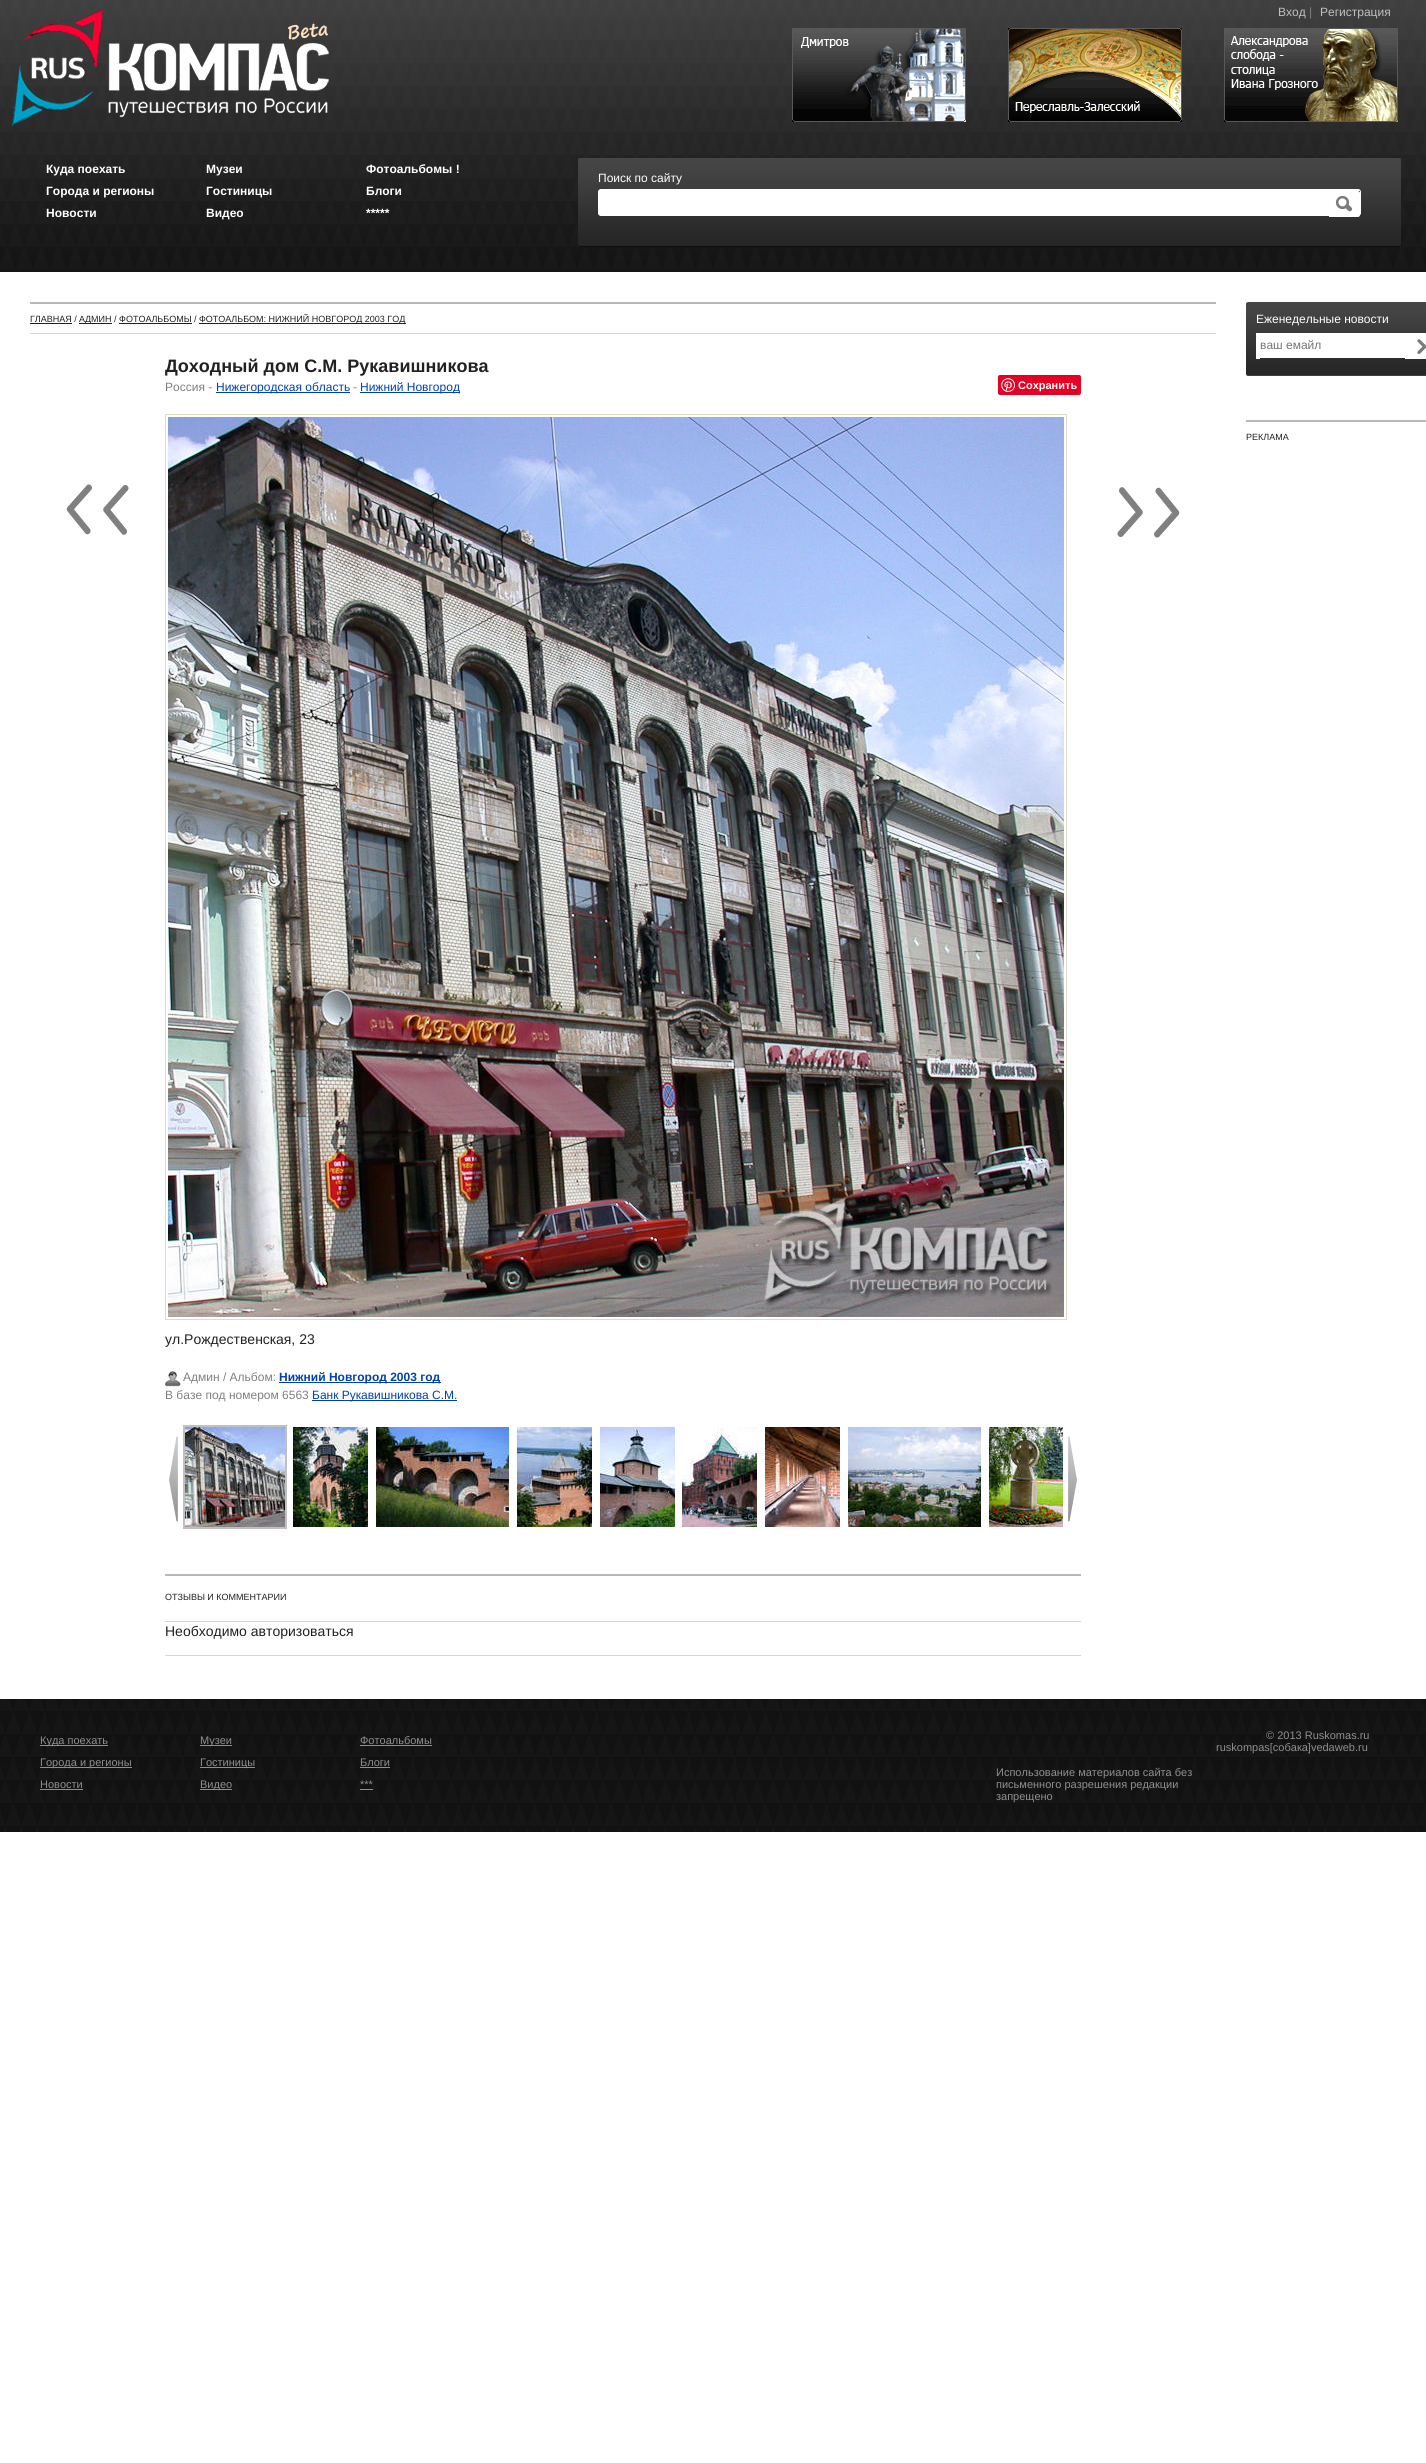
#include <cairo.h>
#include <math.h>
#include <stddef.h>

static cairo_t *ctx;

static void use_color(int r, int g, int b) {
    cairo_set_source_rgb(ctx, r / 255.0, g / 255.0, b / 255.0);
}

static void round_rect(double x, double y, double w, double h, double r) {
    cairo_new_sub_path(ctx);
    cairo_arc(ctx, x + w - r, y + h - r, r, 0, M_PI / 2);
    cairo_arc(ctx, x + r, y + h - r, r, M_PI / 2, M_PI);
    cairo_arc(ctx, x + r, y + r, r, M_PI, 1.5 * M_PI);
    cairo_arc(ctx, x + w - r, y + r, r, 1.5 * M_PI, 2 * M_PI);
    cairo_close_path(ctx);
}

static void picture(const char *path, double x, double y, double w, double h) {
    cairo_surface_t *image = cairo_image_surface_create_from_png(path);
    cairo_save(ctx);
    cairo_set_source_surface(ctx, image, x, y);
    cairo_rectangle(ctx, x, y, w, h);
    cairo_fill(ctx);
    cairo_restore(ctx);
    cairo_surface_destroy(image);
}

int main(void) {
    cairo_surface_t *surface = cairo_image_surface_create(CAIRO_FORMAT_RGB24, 1426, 2463);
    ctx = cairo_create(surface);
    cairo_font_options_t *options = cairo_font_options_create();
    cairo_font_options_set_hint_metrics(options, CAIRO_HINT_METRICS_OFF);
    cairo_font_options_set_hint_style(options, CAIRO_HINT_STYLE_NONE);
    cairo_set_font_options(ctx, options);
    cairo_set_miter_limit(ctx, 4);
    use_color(255, 255, 255);
    cairo_paint(ctx);
    picture("img1.png", 0, 0, 1426, 272);
    picture("img2.png", 12, 8, 317, 118);
    cairo_select_font_face(ctx, "Liberation Sans", CAIRO_FONT_SLANT_NORMAL, CAIRO_FONT_WEIGHT_NORMAL);
    cairo_set_font_size(ctx, 12);
    use_color(192, 192, 192);
    cairo_move_to(ctx, 1278, 16);
    cairo_show_text(ctx, "Вход");
    use_color(128, 128, 128);
    cairo_move_to(ctx, 1309, 16);
    cairo_show_text(ctx, "|");
    use_color(192, 192, 192);
    cairo_move_to(ctx, 1320, 16);
    cairo_show_text(ctx, "Регистрация");
    picture("img3.png", 792, 28, 174, 94);
    picture("img4.png", 1008, 28, 174, 94);
    picture("img5.png", 1224, 28, 174, 94);
    cairo_select_font_face(ctx, "Liberation Sans", CAIRO_FONT_SLANT_NORMAL, CAIRO_FONT_WEIGHT_BOLD);
    use_color(255, 255, 255);
    cairo_move_to(ctx, 46, 173);
    cairo_show_text(ctx, "Куда поехать");
    cairo_move_to(ctx, 46, 195);
    cairo_show_text(ctx, "Города и регионы");
    cairo_move_to(ctx, 46, 217);
    cairo_show_text(ctx, "Новости");
    cairo_move_to(ctx, 206, 173);
    cairo_show_text(ctx, "Музеи");
    cairo_move_to(ctx, 206, 195);
    cairo_show_text(ctx, "Гостиницы");
    cairo_move_to(ctx, 206, 217);
    cairo_show_text(ctx, "Видео");
    cairo_move_to(ctx, 366, 173);
    cairo_show_text(ctx, "Фотоальбомы !");
    cairo_move_to(ctx, 366, 195);
    cairo_show_text(ctx, "Блоги");
    cairo_move_to(ctx, 366, 217);
    cairo_show_text(ctx, "*****");
    picture("img6.png", 578, 158, 2, 89);
    picture("img7.png", 580, 158, 819, 89);
    cairo_select_font_face(ctx, "Liberation Sans", CAIRO_FONT_SLANT_NORMAL, CAIRO_FONT_WEIGHT_NORMAL);
    cairo_move_to(ctx, 598, 182);
    cairo_show_text(ctx, "Поиск по сайту");
    round_rect(598.5, 189.5, 762, 26, 2.5);
    cairo_fill_preserve(ctx);
    cairo_set_line_width(ctx, 1);
    cairo_stroke(ctx);
    picture("img8.png", 1329, 191, 31, 26);
    picture("img9.png", 1399, 158, 2, 89);
    use_color(184, 184, 184);
    cairo_rectangle(ctx, 30, 302, 1186, 2);
    cairo_fill(ctx);
    use_color(214, 214, 214);
    cairo_rectangle(ctx, 30, 333, 1186, 1);
    cairo_fill(ctx);
    cairo_set_font_size(ctx, 9);
    use_color(33, 33, 33);
    cairo_move_to(ctx, 30, 322);
    cairo_show_text(ctx, "ГЛАВНАЯ /");
    cairo_rectangle(ctx, 30, 323, 42, 1);
    cairo_fill(ctx);
    cairo_rectangle(ctx, 79, 323, 33, 1);
    cairo_fill(ctx);
    cairo_move_to(ctx, 79, 322);
    cairo_show_text(ctx, "АДМИН / ФОТОАЛЬБОМЫ /");
    cairo_rectangle(ctx, 199, 323, 207, 1);
    cairo_fill(ctx);
    cairo_move_to(ctx, 199, 322);
    cairo_show_text(ctx, "ФОТОАЛЬБОМ: НИЖНИЙ НОВГОРОД 2003 ГОД");
    cairo_rectangle(ctx, 119, 323, 73, 1);
    cairo_fill(ctx);
    picture("img10.png", 66, 484, 63, 51);
    cairo_select_font_face(ctx, "Liberation Sans", CAIRO_FONT_SLANT_NORMAL, CAIRO_FONT_WEIGHT_BOLD);
    cairo_set_font_size(ctx, 18);
    cairo_move_to(ctx, 165, 372);
    cairo_show_text(ctx, "Доходный дом С.М. Рукавишникова");
    cairo_select_font_face(ctx, "Liberation Sans", CAIRO_FONT_SLANT_NORMAL, CAIRO_FONT_WEIGHT_NORMAL);
    cairo_set_font_size(ctx, 12);
    use_color(128, 128, 128);
    cairo_move_to(ctx, 165, 391);
    cairo_show_text(ctx, "Россия -");
    use_color(0, 64, 181);
    cairo_rectangle(ctx, 216, 392, 134, 1);
    cairo_fill(ctx);
    cairo_move_to(ctx, 216, 391);
    cairo_show_text(ctx, "Нижегородская область");
    use_color(128, 128, 128);
    cairo_move_to(ctx, 353, 391);
    cairo_show_text(ctx, "-");
    use_color(0, 64, 181);
    cairo_rectangle(ctx, 360, 392, 100, 1);
    cairo_fill(ctx);
    cairo_move_to(ctx, 360, 391);
    cairo_show_text(ctx, "Нижний Новгород");
    use_color(230, 0, 35);
    round_rect(998, 375, 83, 20, 2);
    cairo_fill(ctx);
    picture("img11.png", 1001, 378, 14, 14);
    cairo_select_font_face(ctx, "Liberation Sans", CAIRO_FONT_SLANT_NORMAL, CAIRO_FONT_WEIGHT_BOLD);
    cairo_set_font_size(ctx, 11);
    use_color(255, 255, 255);
    cairo_move_to(ctx, 1018, 389);
    cairo_show_text(ctx, "Сохранить");
    cairo_rectangle(ctx, 165.5, 414.5, 901, 905);
    use_color(222, 219, 200);
    cairo_stroke(ctx);
    picture("img12.png", 168, 417, 896, 900);
    cairo_select_font_face(ctx, "Liberation Sans", CAIRO_FONT_SLANT_NORMAL, CAIRO_FONT_WEIGHT_NORMAL);
    cairo_set_font_size(ctx, 14);
    use_color(33, 33, 33);
    cairo_move_to(ctx, 165, 1344);
    cairo_show_text(ctx, "ул.Рождественская, 23");
    picture("img13.png", 165, 1371, 16, 16);
    cairo_set_font_size(ctx, 12);
    use_color(128, 128, 128);
    cairo_move_to(ctx, 183, 1381);
    cairo_show_text(ctx, "Админ / Альбом:");
    use_color(0, 64, 181);
    cairo_rectangle(ctx, 279, 1382, 162, 1);
    cairo_fill(ctx);
    cairo_select_font_face(ctx, "Liberation Sans", CAIRO_FONT_SLANT_NORMAL, CAIRO_FONT_WEIGHT_BOLD);
    cairo_move_to(ctx, 279, 1381);
    cairo_show_text(ctx, "Нижний Новгород 2003 год");
    cairo_select_font_face(ctx, "Liberation Sans", CAIRO_FONT_SLANT_NORMAL, CAIRO_FONT_WEIGHT_NORMAL);
    use_color(128, 128, 128);
    cairo_move_to(ctx, 165, 1399);
    cairo_show_text(ctx, "В базе под номером 6563");
    use_color(0, 64, 181);
    cairo_rectangle(ctx, 312, 1400, 145, 1);
    cairo_fill(ctx);
    cairo_move_to(ctx, 312, 1399);
    cairo_show_text(ctx, "Банк Рукавишникова С.М.");
    picture("img14.png", 169, 1436, 10, 86);
    cairo_rectangle(ctx, 184, 1426, 102, 102);
    use_color(192, 192, 192);
    cairo_set_line_width(ctx, 2);
    cairo_stroke(ctx);
    picture("img15.png", 185, 1427, 100, 100);
    picture("img16.png", 293, 1427, 75, 100);
    picture("img17.png", 376, 1427, 133, 100);
    picture("img18.png", 517, 1427, 75, 100);
    picture("img19.png", 600, 1427, 75, 100);
    picture("img20.png", 682, 1427, 75, 100);
    picture("img21.png", 765, 1427, 75, 100);
    picture("img22.png", 848, 1427, 133, 100);
    picture("img23.png", 989, 1427, 74, 100);
    picture("img24.png", 1067, 1436, 10, 86);
    use_color(184, 184, 184);
    cairo_rectangle(ctx, 165, 1574, 916, 2);
    cairo_fill(ctx);
    use_color(214, 214, 214);
    cairo_rectangle(ctx, 165, 1621, 916, 1);
    cairo_fill(ctx);
    cairo_set_font_size(ctx, 9);
    use_color(33, 33, 33);
    cairo_move_to(ctx, 165, 1600);
    cairo_show_text(ctx, "ОТЗЫВЫ И КОММЕНТАРИИ");
    cairo_set_font_size(ctx, 14);
    cairo_move_to(ctx, 165, 1636);
    cairo_show_text(ctx, "Необходимо авторизоваться");
    use_color(214, 214, 214);
    cairo_rectangle(ctx, 165, 1655, 916, 1);
    cairo_fill(ctx);
    picture("img25.png", 1117, 487, 63, 51);
    picture("img26.png", 1246, 302, 180, 74);
    cairo_set_font_size(ctx, 12);
    use_color(255, 255, 255);
    cairo_move_to(ctx, 1256, 323);
    cairo_show_text(ctx, "Еженедельные новости");
    cairo_rectangle(ctx, 1256, 333, 4, 26);
    cairo_fill(ctx);
    cairo_rectangle(ctx, 1260, 333, 145, 25);
    cairo_fill(ctx);
    use_color(117, 117, 117);
    cairo_move_to(ctx, 1260, 349);
    cairo_show_text(ctx, "ваш емайл");
    picture("img27.png", 1405, 333, 21, 26);
    use_color(184, 184, 184);
    cairo_rectangle(ctx, 1246, 420, 180, 2);
    cairo_fill(ctx);
    cairo_set_font_size(ctx, 9);
    use_color(33, 33, 33);
    cairo_move_to(ctx, 1246, 440);
    cairo_show_text(ctx, "РЕКЛАМА");
    picture("img28.png", 0, 1699, 1426, 133);
    use_color(143, 143, 143);
    cairo_rectangle(ctx, 40, 1745, 68, 1);
    cairo_fill(ctx);
    cairo_set_font_size(ctx, 11);
    cairo_move_to(ctx, 40, 1744);
    cairo_show_text(ctx, "Куда поехать");
    cairo_rectangle(ctx, 40, 1767, 92, 1);
    cairo_fill(ctx);
    cairo_move_to(ctx, 40, 1766);
    cairo_show_text(ctx, "Города и регионы");
    cairo_move_to(ctx, 40, 1788);
    cairo_show_text(ctx, "Новости");
    cairo_rectangle(ctx, 40, 1789, 43, 1);
    cairo_fill(ctx);
    cairo_rectangle(ctx, 200, 1745, 32, 1);
    cairo_fill(ctx);
    cairo_move_to(ctx, 200, 1744);
    cairo_show_text(ctx, "Музеи");
    cairo_rectangle(ctx, 200, 1767, 55, 1);
    cairo_fill(ctx);
    cairo_move_to(ctx, 200, 1766);
    cairo_show_text(ctx, "Гостиницы");
    cairo_rectangle(ctx, 200, 1789, 32, 1);
    cairo_fill(ctx);
    cairo_move_to(ctx, 200, 1788);
    cairo_show_text(ctx, "Видео");
    cairo_move_to(ctx, 360, 1744);
    cairo_show_text(ctx, "Фотоальбомы");
    cairo_rectangle(ctx, 360, 1745, 72, 1);
    cairo_fill(ctx);
    cairo_move_to(ctx, 360, 1766);
    cairo_show_text(ctx, "Блоги");
    cairo_rectangle(ctx, 360, 1767, 30, 1);
    cairo_fill(ctx);
    cairo_move_to(ctx, 360, 1788);
    cairo_show_text(ctx, "***");
    cairo_rectangle(ctx, 360, 1789, 13, 1);
    cairo_fill(ctx);
    cairo_move_to(ctx, 1266, 1739);
    cairo_show_text(ctx, "© 2013 Ruskomas.ru");
    cairo_move_to(ctx, 1216, 1751);
    cairo_show_text(ctx, "ruskompas[собака]vedaweb.ru");
    cairo_move_to(ctx, 996, 1776);
    cairo_show_text(ctx, "Использование материалов сайта без");
    cairo_move_to(ctx, 996, 1788);
    cairo_show_text(ctx, "письменного разрешения редакции");
    cairo_move_to(ctx, 996, 1800);
    cairo_show_text(ctx, "запрещено");
    cairo_surface_write_to_png(surface, "result.png");
    cairo_font_options_destroy(options);
    cairo_destroy(ctx);
    cairo_surface_destroy(surface);
    return 0;
}
